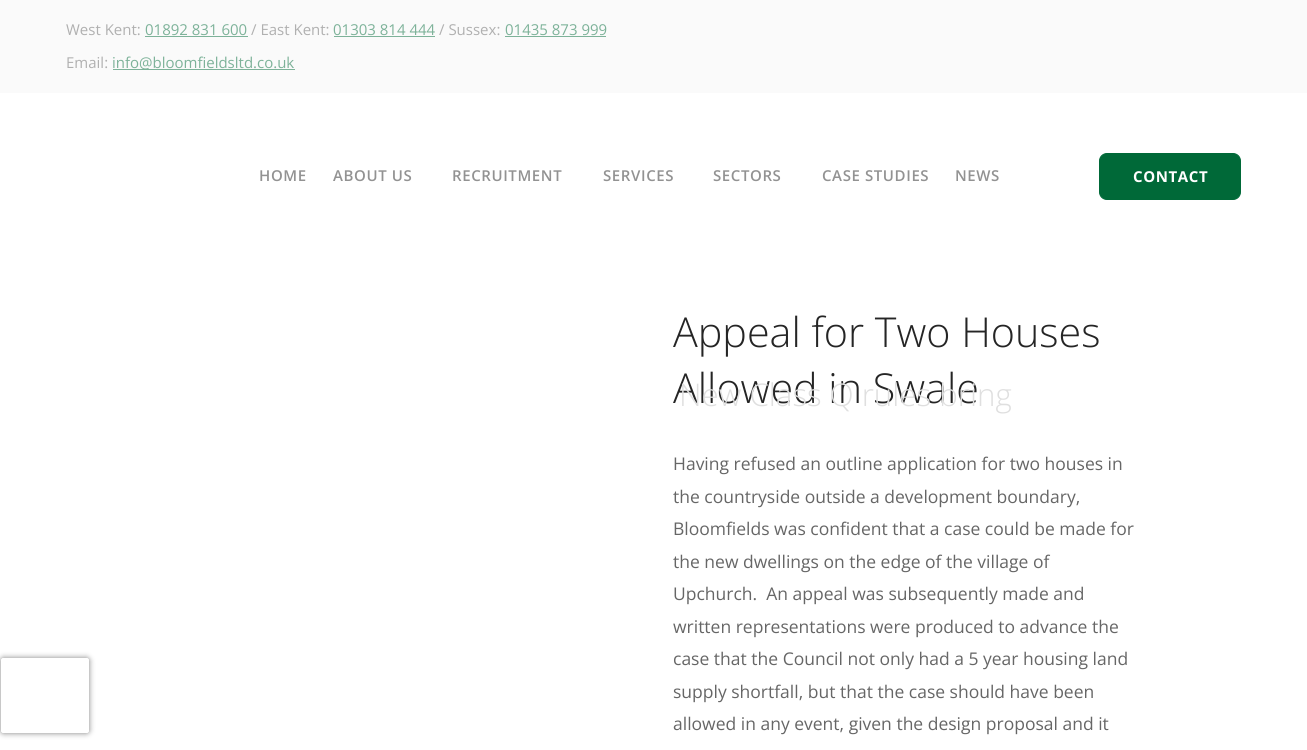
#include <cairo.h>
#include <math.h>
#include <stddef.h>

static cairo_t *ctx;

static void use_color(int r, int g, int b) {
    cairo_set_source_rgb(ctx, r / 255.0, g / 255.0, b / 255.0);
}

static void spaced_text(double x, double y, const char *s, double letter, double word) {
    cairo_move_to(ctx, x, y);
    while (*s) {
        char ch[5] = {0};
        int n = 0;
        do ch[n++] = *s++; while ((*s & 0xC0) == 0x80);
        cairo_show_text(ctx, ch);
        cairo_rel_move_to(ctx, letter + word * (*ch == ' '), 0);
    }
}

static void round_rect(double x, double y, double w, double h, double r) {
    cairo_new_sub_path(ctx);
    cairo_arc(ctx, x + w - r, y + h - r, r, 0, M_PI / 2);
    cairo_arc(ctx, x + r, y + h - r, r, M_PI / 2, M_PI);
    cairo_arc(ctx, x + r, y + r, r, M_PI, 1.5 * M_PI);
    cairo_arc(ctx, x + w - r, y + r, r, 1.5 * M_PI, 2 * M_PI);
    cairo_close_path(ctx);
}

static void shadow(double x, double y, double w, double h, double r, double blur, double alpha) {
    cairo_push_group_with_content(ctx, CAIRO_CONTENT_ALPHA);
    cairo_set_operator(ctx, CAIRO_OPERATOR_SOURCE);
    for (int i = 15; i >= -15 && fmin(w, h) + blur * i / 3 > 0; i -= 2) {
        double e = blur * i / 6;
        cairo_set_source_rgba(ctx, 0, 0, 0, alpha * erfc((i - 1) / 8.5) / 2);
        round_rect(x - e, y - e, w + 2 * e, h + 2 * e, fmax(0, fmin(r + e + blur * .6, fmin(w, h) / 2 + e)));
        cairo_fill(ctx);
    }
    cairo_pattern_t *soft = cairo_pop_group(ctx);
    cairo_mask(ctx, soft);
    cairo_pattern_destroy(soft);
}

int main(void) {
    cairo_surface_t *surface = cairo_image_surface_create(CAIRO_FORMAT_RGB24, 1307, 750);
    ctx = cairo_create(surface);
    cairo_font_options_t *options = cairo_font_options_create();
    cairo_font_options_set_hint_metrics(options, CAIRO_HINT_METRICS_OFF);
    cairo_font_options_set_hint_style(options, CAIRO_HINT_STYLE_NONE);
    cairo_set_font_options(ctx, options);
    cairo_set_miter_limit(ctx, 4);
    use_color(255, 255, 255);
    cairo_paint(ctx);
    use_color(250, 250, 250);
    cairo_rectangle(ctx, 0, 0, 1307, 93);
    cairo_fill(ctx);
    cairo_select_font_face(ctx, "Open Sans", CAIRO_FONT_SLANT_NORMAL, CAIRO_FONT_WEIGHT_NORMAL);
    cairo_set_font_size(ctx, 15);
    use_color(176, 176, 176);
    cairo_move_to(ctx, 66, 35);
    cairo_show_text(ctx, "West Kent:");
    use_color(125, 178, 153);
    cairo_move_to(ctx, 145, 35);
    cairo_show_text(ctx, "01892 831 600");
    cairo_rectangle(ctx, 145, 36, 103, 1);
    cairo_fill(ctx);
    use_color(176, 176, 176);
    cairo_move_to(ctx, 251, 35);
    cairo_show_text(ctx, "/ East Kent:");
    use_color(125, 178, 153);
    cairo_move_to(ctx, 333, 35);
    cairo_show_text(ctx, "01303 814 444");
    cairo_rectangle(ctx, 334, 36, 101, 1);
    cairo_fill(ctx);
    use_color(176, 176, 176);
    cairo_move_to(ctx, 439, 35);
    cairo_show_text(ctx, "/ Sussex:");
    use_color(125, 178, 153);
    cairo_move_to(ctx, 505, 35);
    cairo_show_text(ctx, "01435 873 999");
    cairo_rectangle(ctx, 505, 36, 101, 1);
    cairo_fill(ctx);
    use_color(176, 176, 176);
    cairo_move_to(ctx, 66, 68);
    cairo_show_text(ctx, "Email:");
    use_color(125, 178, 153);
    cairo_rectangle(ctx, 113, 69, 182, 1);
    cairo_fill(ctx);
    cairo_move_to(ctx, 112, 68);
    cairo_show_text(ctx, "info@bloomfieldsltd.co.uk");
    cairo_select_font_face(ctx, "Open Sans SemiBold", CAIRO_FONT_SLANT_NORMAL, CAIRO_FONT_WEIGHT_NORMAL);
    use_color(146, 146, 146);
    spaced_text(259, 181, "HOME", 0.6, 0);
    spaced_text(333, 181, "ABOUT US", 0.6, 0);
    spaced_text(452, 181, "RECRUITMENT", 0.6, 0);
    spaced_text(603, 181, "SERVICES", 0.6, 0);
    cairo_select_font_face(ctx, "Open Sans Light", CAIRO_FONT_SLANT_NORMAL, CAIRO_FONT_WEIGHT_NORMAL);
    cairo_set_font_size(ctx, 41.25);
    use_color(37, 37, 37);
    cairo_move_to(ctx, 673, 403);
    cairo_show_text(ctx, "Allowed in Swale");
    cairo_set_font_size(ctx, 31.25);
    use_color(223, 223, 223);
    cairo_move_to(ctx, 679, 406);
    cairo_show_text(ctx, "New Class Q rules bring");
    cairo_select_font_face(ctx, "Open Sans SemiBold", CAIRO_FONT_SLANT_NORMAL, CAIRO_FONT_WEIGHT_NORMAL);
    cairo_set_font_size(ctx, 15);
    use_color(146, 146, 146);
    spaced_text(713, 181, "SECTORS", 0.6, 0);
    spaced_text(822, 181, "CASE STUDIES", 0.6, 0);
    spaced_text(955, 181, "NEWS", 0.6, 0);
    use_color(0, 105, 56);
    round_rect(1099.5, 153.5, 141, 46, 7.5);
    cairo_fill_preserve(ctx);
    cairo_set_line_width(ctx, 1);
    cairo_stroke(ctx);
    cairo_select_font_face(ctx, "Open Sans", CAIRO_FONT_SLANT_NORMAL, CAIRO_FONT_WEIGHT_BOLD);
    use_color(255, 255, 255);
    spaced_text(1133, 182, "CONTACT", 0.6, 0);
    cairo_save(ctx);
    cairo_set_fill_rule(ctx, CAIRO_FILL_RULE_EVEN_ODD);
    cairo_new_path(ctx);
    cairo_move_to(ctx, 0, 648);
    cairo_line_to(ctx, 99, 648);
    cairo_line_to(ctx, 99, 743);
    cairo_line_to(ctx, 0, 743);
    cairo_close_path(ctx);
    cairo_move_to(ctx, 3.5, 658);
    cairo_line_to(ctx, 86.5, 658);
    cairo_curve_to(ctx, 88, 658, 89, 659, 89, 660.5);
    cairo_line_to(ctx, 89, 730.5);
    cairo_curve_to(ctx, 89, 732, 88, 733, 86.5, 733);
    cairo_line_to(ctx, 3.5, 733);
    cairo_curve_to(ctx, 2, 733, 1, 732, 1, 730.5);
    cairo_line_to(ctx, 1, 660.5);
    cairo_curve_to(ctx, 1, 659, 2, 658, 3.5, 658);
    cairo_close_path(ctx);
    cairo_clip(ctx);
    use_color(128, 128, 128);
    shadow(1, 658, 88, 75, 2.5, 3, 1);
    cairo_restore(ctx);
    cairo_select_font_face(ctx, "Open Sans Light", CAIRO_FONT_SLANT_NORMAL, CAIRO_FONT_WEIGHT_NORMAL);
    cairo_set_font_size(ctx, 41.25);
    use_color(37, 37, 37);
    cairo_move_to(ctx, 673, 347);
    cairo_show_text(ctx, "Appeal for Two Houses");
    cairo_select_font_face(ctx, "Open Sans", CAIRO_FONT_SLANT_NORMAL, CAIRO_FONT_WEIGHT_NORMAL);
    cairo_set_font_size(ctx, 17.5);
    use_color(102, 102, 102);
    cairo_move_to(ctx, 673, 470);
    cairo_show_text(ctx, "Having refused an outline application for two houses in");
    cairo_move_to(ctx, 673, 503);
    cairo_show_text(ctx, "the countryside outside a development boundary,");
    cairo_move_to(ctx, 673, 535);
    cairo_show_text(ctx, "Bloomfields was confident that a case could be made for");
    cairo_move_to(ctx, 673, 568);
    cairo_show_text(ctx, "the new dwellings on the edge of the village of");
    cairo_move_to(ctx, 673, 600);
    cairo_show_text(ctx, "Upchurch.  An appeal was subsequently made and");
    cairo_move_to(ctx, 673, 633);
    cairo_show_text(ctx, "written representations were produced to advance the");
    cairo_move_to(ctx, 673, 665);
    cairo_show_text(ctx, "case that the Council not only had a 5 year housing land");
    cairo_move_to(ctx, 673, 698);
    cairo_show_text(ctx, "supply shortfall, but that the case should have been");
    cairo_move_to(ctx, 673, 730);
    cairo_show_text(ctx, "allowed in any event, given the design proposal and it");
    cairo_surface_write_to_png(surface, "result.png");
    cairo_font_options_destroy(options);
    cairo_destroy(ctx);
    cairo_surface_destroy(surface);
    return 0;
}
